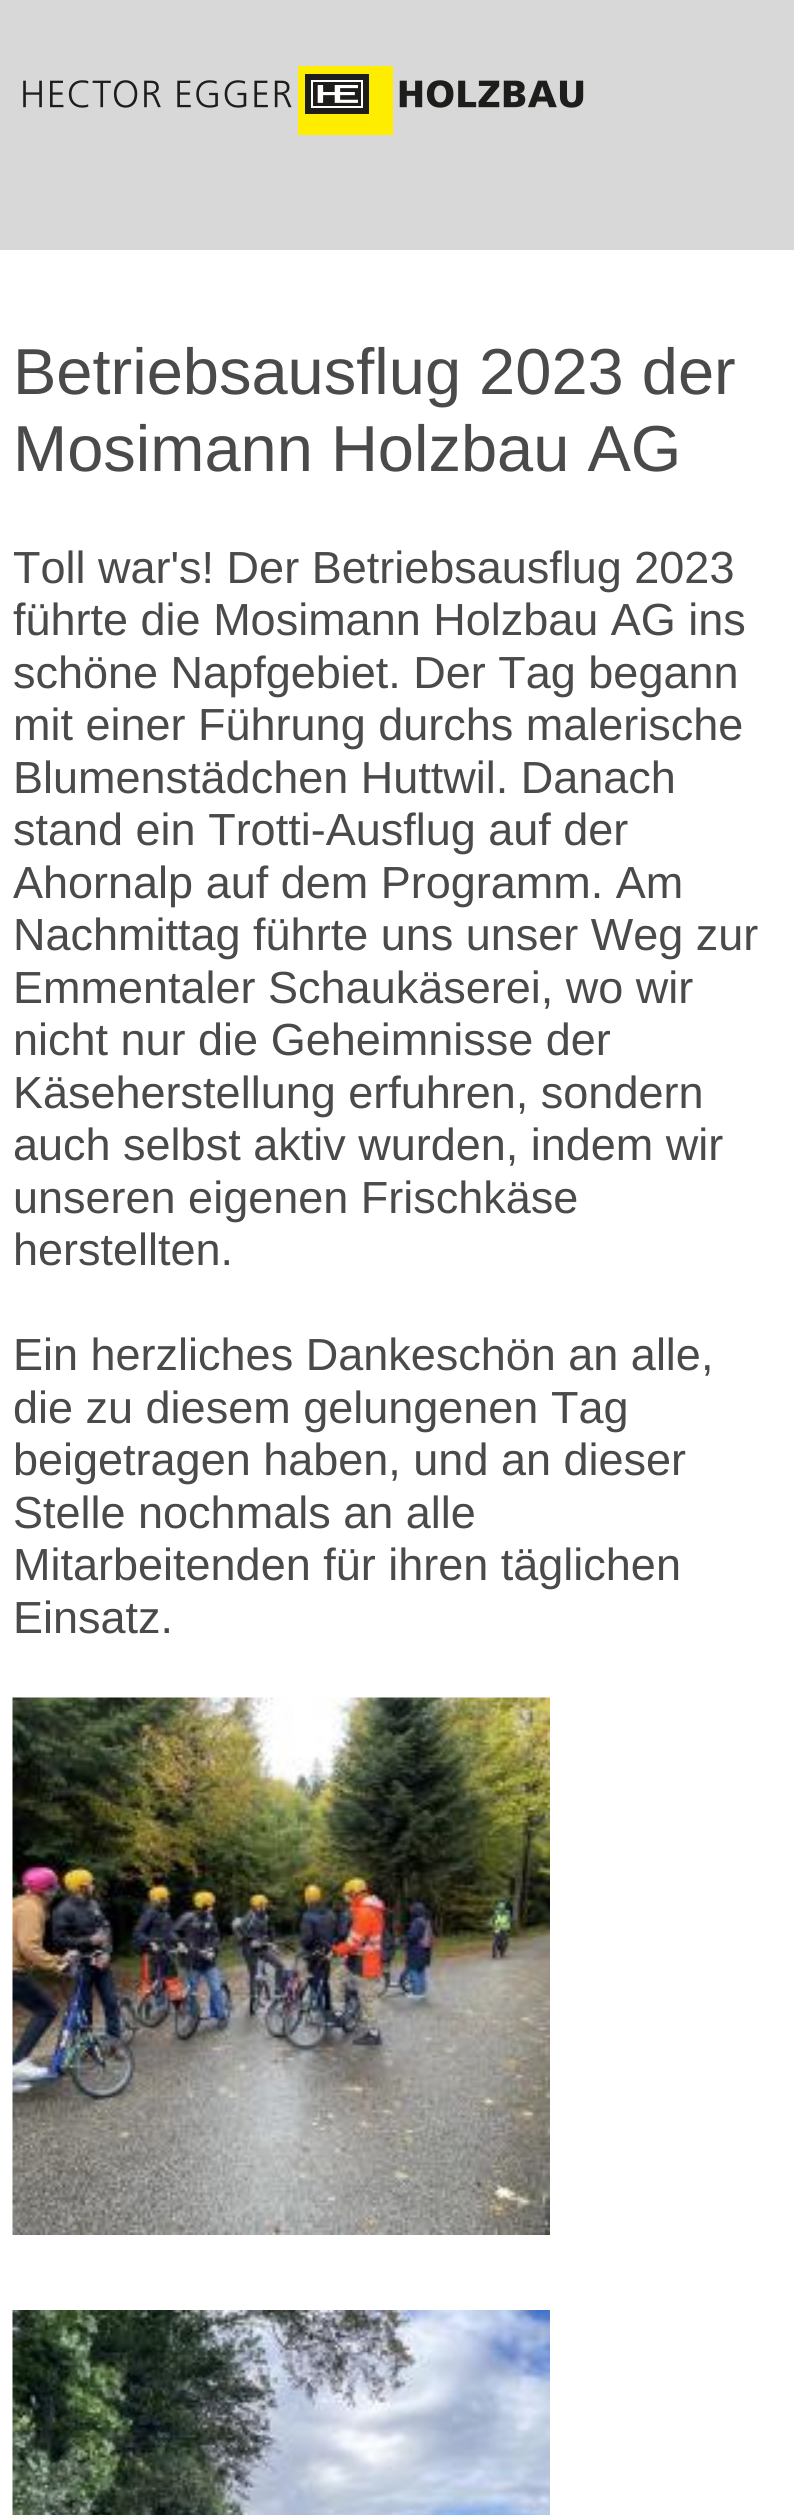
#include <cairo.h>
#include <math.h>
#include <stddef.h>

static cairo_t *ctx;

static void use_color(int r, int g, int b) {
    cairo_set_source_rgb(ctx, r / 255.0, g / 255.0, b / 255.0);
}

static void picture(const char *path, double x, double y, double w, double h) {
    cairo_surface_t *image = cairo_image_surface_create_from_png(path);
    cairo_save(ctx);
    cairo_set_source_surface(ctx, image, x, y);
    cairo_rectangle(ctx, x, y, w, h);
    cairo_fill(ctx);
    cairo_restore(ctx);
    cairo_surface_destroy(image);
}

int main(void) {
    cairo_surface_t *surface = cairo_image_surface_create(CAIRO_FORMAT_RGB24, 794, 2515);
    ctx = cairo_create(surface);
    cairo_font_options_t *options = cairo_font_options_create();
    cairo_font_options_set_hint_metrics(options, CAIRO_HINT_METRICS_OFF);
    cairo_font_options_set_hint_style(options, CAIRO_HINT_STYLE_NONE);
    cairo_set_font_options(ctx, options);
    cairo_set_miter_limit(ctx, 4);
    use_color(255, 255, 255);
    cairo_paint(ctx);
    use_color(216, 216, 216);
    cairo_rectangle(ctx, 0, 0, 794, 250);
    cairo_fill(ctx);
    picture("img1.png", 23, 66, 561, 69);
    cairo_select_font_face(ctx, "Liberation Sans", CAIRO_FONT_SLANT_NORMAL, CAIRO_FONT_WEIGHT_NORMAL);
    cairo_set_font_size(ctx, 65);
    use_color(74, 74, 74);
    cairo_move_to(ctx, 13, 394);
    cairo_show_text(ctx, "Betriebsausflug 2023 der");
    cairo_move_to(ctx, 13, 471);
    cairo_show_text(ctx, "Mosimann Holzbau AG");
    cairo_set_font_size(ctx, 45);
    cairo_move_to(ctx, 13, 583);
    cairo_show_text(ctx, "Toll war's! Der Betriebsausflug 2023");
    cairo_move_to(ctx, 13, 635);
    cairo_show_text(ctx, "führte die Mosimann Holzbau AG ins");
    cairo_move_to(ctx, 13, 688);
    cairo_show_text(ctx, "schöne Napfgebiet. Der Tag begann");
    cairo_move_to(ctx, 13, 740);
    cairo_show_text(ctx, "mit einer Führung durchs malerische");
    cairo_move_to(ctx, 13, 793);
    cairo_show_text(ctx, "Blumenstädchen Huttwil. Danach");
    cairo_move_to(ctx, 13, 845);
    cairo_show_text(ctx, "stand ein Trotti-Ausflug auf der");
    cairo_move_to(ctx, 13, 898);
    cairo_show_text(ctx, "Ahornalp auf dem Programm. Am");
    cairo_move_to(ctx, 13, 950);
    cairo_show_text(ctx, "Nachmittag führte uns unser Weg zur");
    cairo_move_to(ctx, 13, 1003);
    cairo_show_text(ctx, "Emmentaler Schaukäserei, wo wir");
    cairo_move_to(ctx, 13, 1055);
    cairo_show_text(ctx, "nicht nur die Geheimnisse der");
    cairo_move_to(ctx, 13, 1108);
    cairo_show_text(ctx, "Käseherstellung erfuhren, sondern");
    cairo_move_to(ctx, 13, 1160);
    cairo_show_text(ctx, "auch selbst aktiv wurden, indem wir");
    cairo_move_to(ctx, 13, 1213);
    cairo_show_text(ctx, "unseren eigenen Frischkäse");
    cairo_move_to(ctx, 13, 1265);
    cairo_show_text(ctx, "herstellten.");
    cairo_move_to(ctx, 13, 1370);
    cairo_show_text(ctx, "Ein herzliches Dankeschön an alle,");
    cairo_move_to(ctx, 13, 1423);
    cairo_show_text(ctx, "die zu diesem gelungenen Tag");
    cairo_move_to(ctx, 13, 1475);
    cairo_show_text(ctx, "beigetragen haben, und an dieser");
    cairo_move_to(ctx, 13, 1528);
    cairo_show_text(ctx, "Stelle nochmals an alle");
    cairo_move_to(ctx, 13, 1580);
    cairo_show_text(ctx, "Mitarbeitenden für ihren täglichen");
    cairo_move_to(ctx, 13, 1633);
    cairo_show_text(ctx, "Einsatz.");
    picture("img2.png", 12, 1697, 538, 538);
    picture("img3.png", 12, 2310, 538, 205);
    cairo_surface_write_to_png(surface, "result.png");
    cairo_font_options_destroy(options);
    cairo_destroy(ctx);
    cairo_surface_destroy(surface);
    return 0;
}
